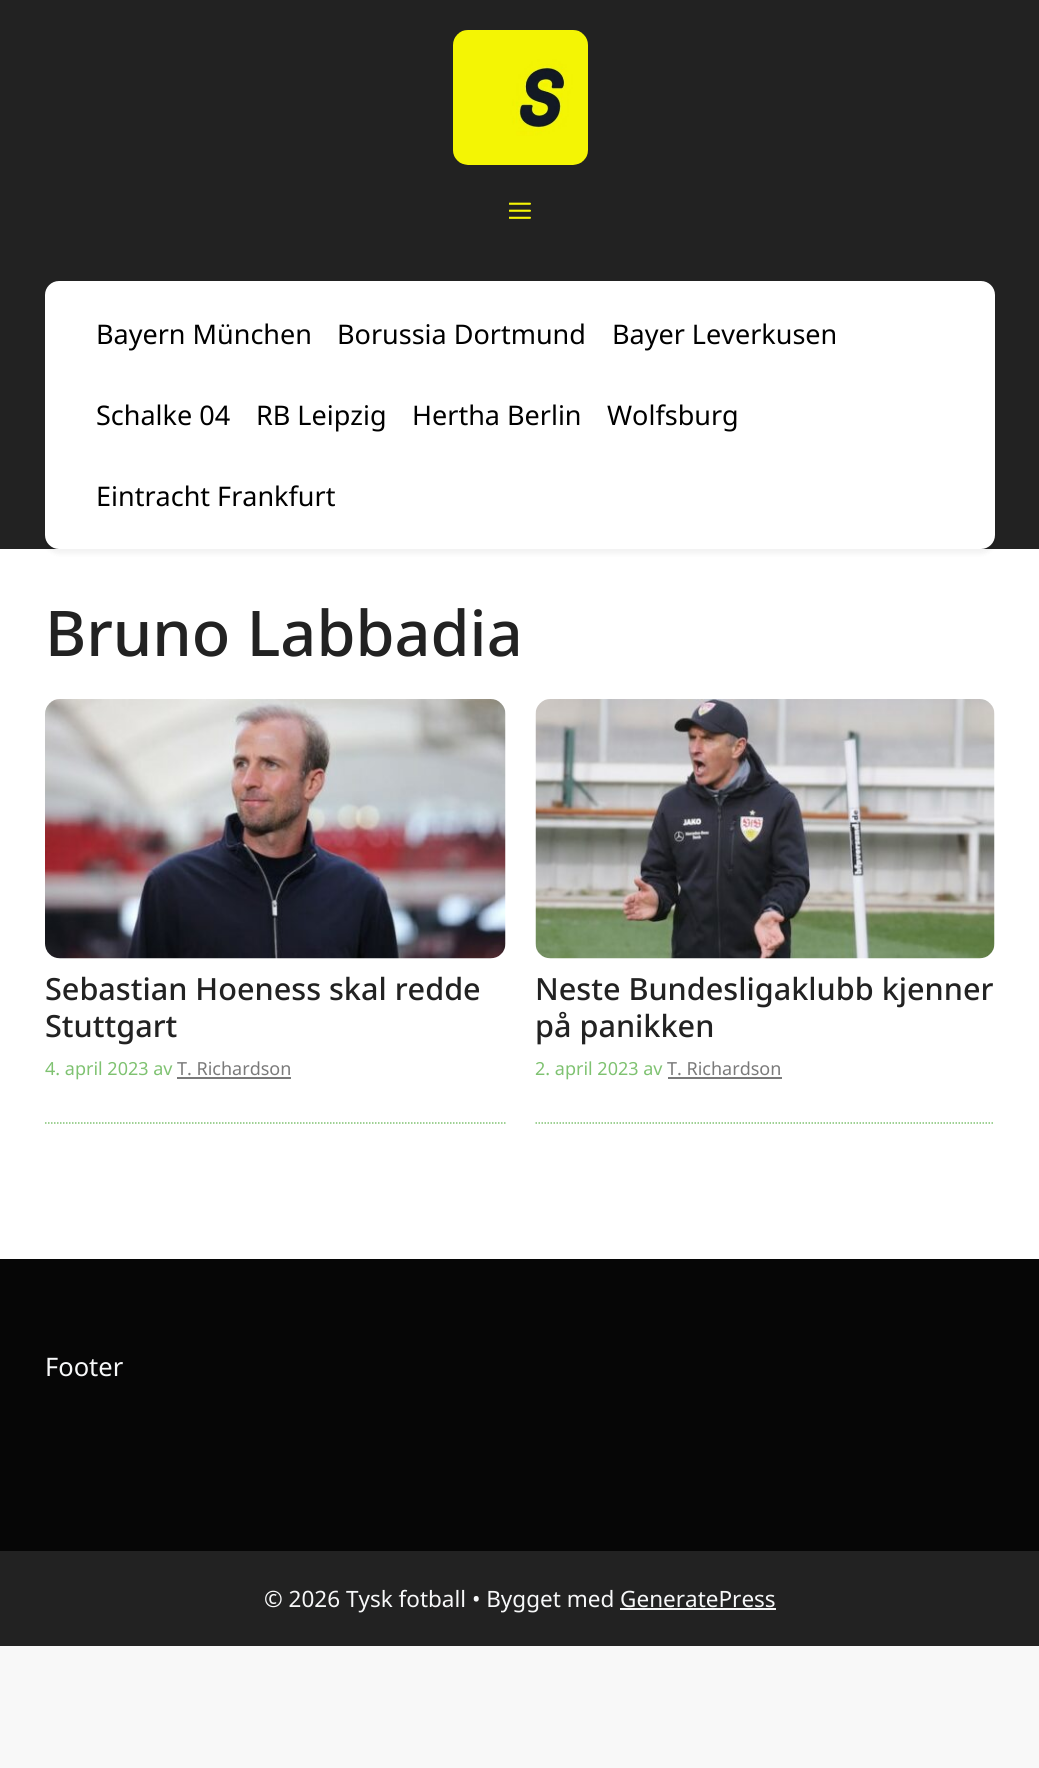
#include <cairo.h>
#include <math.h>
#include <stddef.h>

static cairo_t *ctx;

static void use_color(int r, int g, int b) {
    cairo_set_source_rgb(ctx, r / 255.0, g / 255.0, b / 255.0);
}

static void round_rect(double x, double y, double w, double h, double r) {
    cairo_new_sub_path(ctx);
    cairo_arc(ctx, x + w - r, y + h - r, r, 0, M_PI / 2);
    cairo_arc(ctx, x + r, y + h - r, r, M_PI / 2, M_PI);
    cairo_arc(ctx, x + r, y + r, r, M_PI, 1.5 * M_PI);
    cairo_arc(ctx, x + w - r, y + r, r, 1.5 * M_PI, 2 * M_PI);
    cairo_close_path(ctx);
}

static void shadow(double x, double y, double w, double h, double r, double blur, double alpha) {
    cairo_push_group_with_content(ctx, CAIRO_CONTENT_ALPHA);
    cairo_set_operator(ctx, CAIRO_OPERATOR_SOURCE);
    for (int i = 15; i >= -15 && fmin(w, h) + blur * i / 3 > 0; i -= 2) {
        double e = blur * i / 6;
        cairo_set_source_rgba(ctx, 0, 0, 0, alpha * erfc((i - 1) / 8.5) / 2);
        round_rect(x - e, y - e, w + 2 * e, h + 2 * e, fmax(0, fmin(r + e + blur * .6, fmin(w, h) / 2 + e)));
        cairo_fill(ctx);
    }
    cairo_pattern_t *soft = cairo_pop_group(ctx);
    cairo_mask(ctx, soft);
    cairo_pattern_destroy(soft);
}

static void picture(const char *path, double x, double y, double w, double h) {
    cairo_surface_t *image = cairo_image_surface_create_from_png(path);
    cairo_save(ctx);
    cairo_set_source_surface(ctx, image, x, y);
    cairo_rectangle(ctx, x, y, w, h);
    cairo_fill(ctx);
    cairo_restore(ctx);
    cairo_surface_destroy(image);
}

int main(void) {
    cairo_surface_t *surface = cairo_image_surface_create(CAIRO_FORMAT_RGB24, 1039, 1768);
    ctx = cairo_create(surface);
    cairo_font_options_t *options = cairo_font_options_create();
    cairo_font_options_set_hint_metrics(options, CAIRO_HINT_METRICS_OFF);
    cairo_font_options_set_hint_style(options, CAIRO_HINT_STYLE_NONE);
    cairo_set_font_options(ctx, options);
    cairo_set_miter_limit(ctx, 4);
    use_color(248, 248, 248);
    cairo_paint(ctx);
    use_color(34, 34, 34);
    cairo_rectangle(ctx, 0, 0, 1039, 549);
    cairo_fill(ctx);
    picture("img1.png", 453, 30, 135, 135);
    picture("img2.png", 509, 202, 22, 17);
    use_color(255, 255, 255);
    cairo_rectangle(ctx, 0, 549, 1039, 710);
    cairo_fill(ctx);
    use_color(0, 0, 8);
    shadow(45, 285, 950, 269, 14, 2, 0.05);
    use_color(255, 255, 255);
    round_rect(45, 281, 950, 268, 14);
    cairo_fill(ctx);
    cairo_select_font_face(ctx, "Noto Sans", CAIRO_FONT_SLANT_NORMAL, CAIRO_FONT_WEIGHT_NORMAL);
    cairo_set_font_size(ctx, 27);
    use_color(0, 0, 0);
    cairo_move_to(ctx, 96, 344);
    cairo_show_text(ctx, "Bayern München");
    cairo_move_to(ctx, 337, 344);
    cairo_show_text(ctx, "Borussia Dortmund");
    cairo_move_to(ctx, 612, 344);
    cairo_show_text(ctx, "Bayer Leverkusen");
    cairo_move_to(ctx, 96, 425);
    cairo_show_text(ctx, "Schalke 04");
    cairo_move_to(ctx, 256, 425);
    cairo_show_text(ctx, "RB Leipzig");
    cairo_move_to(ctx, 412, 425);
    cairo_show_text(ctx, "Hertha Berlin");
    cairo_move_to(ctx, 607, 425);
    cairo_show_text(ctx, "Wolfsburg");
    cairo_move_to(ctx, 96, 506);
    cairo_show_text(ctx, "Eintracht Frankfurt");
    cairo_select_font_face(ctx, "Noto Sans Medium", CAIRO_FONT_SLANT_NORMAL, CAIRO_FONT_WEIGHT_NORMAL);
    cairo_set_font_size(ctx, 63);
    use_color(34, 34, 34);
    cairo_move_to(ctx, 45, 656);
    cairo_show_text(ctx, "Bruno Labbadia");
    picture("img3.png", 45, 699, 461, 260);
    cairo_set_font_size(ctx, 30.6);
    cairo_move_to(ctx, 45, 1000);
    cairo_show_text(ctx, "Sebastian Hoeness skal redde");
    cairo_move_to(ctx, 45, 1037);
    cairo_show_text(ctx, "Stuttgart");
    cairo_new_path(ctx);
    cairo_move_to(ctx, 45, 1123);
    cairo_line_to(ctx, 505.5, 1123);
    use_color(127, 194, 113);
    cairo_set_line_width(ctx, 1.5);
    cairo_set_dash(ctx, (double[]){1.5, 1.5}, 2, 0);
    cairo_stroke(ctx);
    cairo_select_font_face(ctx, "Noto Sans", CAIRO_FONT_SLANT_NORMAL, CAIRO_FONT_WEIGHT_NORMAL);
    cairo_set_font_size(ctx, 18);
    cairo_move_to(ctx, 45, 1075);
    cairo_show_text(ctx, "4. april 2023 av");
    use_color(122, 122, 122);
    cairo_move_to(ctx, 177, 1075);
    cairo_show_text(ctx, "T. Richardson");
    cairo_rectangle(ctx, 177, 1077, 114, 2);
    cairo_fill(ctx);
    picture("img4.png", 535, 699, 460, 260);
    cairo_select_font_face(ctx, "Noto Sans Medium", CAIRO_FONT_SLANT_NORMAL, CAIRO_FONT_WEIGHT_NORMAL);
    cairo_set_font_size(ctx, 30.6);
    use_color(34, 34, 34);
    cairo_move_to(ctx, 535, 1000);
    cairo_show_text(ctx, "Neste Bundesligaklubb kjenner");
    cairo_move_to(ctx, 535, 1037);
    cairo_show_text(ctx, "på panikken");
    cairo_new_path(ctx);
    cairo_move_to(ctx, 535.5, 1123);
    cairo_line_to(ctx, 994.5, 1123);
    use_color(127, 194, 113);
    cairo_stroke(ctx);
    cairo_select_font_face(ctx, "Noto Sans", CAIRO_FONT_SLANT_NORMAL, CAIRO_FONT_WEIGHT_NORMAL);
    cairo_set_font_size(ctx, 18);
    cairo_move_to(ctx, 535, 1075);
    cairo_show_text(ctx, "2. april 2023 av");
    use_color(122, 122, 122);
    cairo_move_to(ctx, 667, 1075);
    cairo_show_text(ctx, "T. Richardson");
    cairo_rectangle(ctx, 668, 1077, 114, 2);
    cairo_fill(ctx);
    use_color(6, 6, 6);
    cairo_rectangle(ctx, 0, 1259, 1039, 292);
    cairo_fill(ctx);
    cairo_set_font_size(ctx, 25.5);
    use_color(247, 248, 249);
    cairo_move_to(ctx, 45, 1376);
    cairo_show_text(ctx, "Footer");
    use_color(34, 34, 34);
    cairo_rectangle(ctx, 0, 1551, 1039, 95);
    cairo_fill(ctx);
    cairo_set_font_size(ctx, 22.5);
    use_color(247, 248, 249);
    cairo_move_to(ctx, 264, 1607);
    cairo_show_text(ctx, "© 2026 Tysk fotball • Bygget med GeneratePress");
    cairo_rectangle(ctx, 620, 1608, 156, 2);
    cairo_fill(ctx);
    cairo_surface_write_to_png(surface, "result.png");
    cairo_font_options_destroy(options);
    cairo_destroy(ctx);
    cairo_surface_destroy(surface);
    return 0;
}
